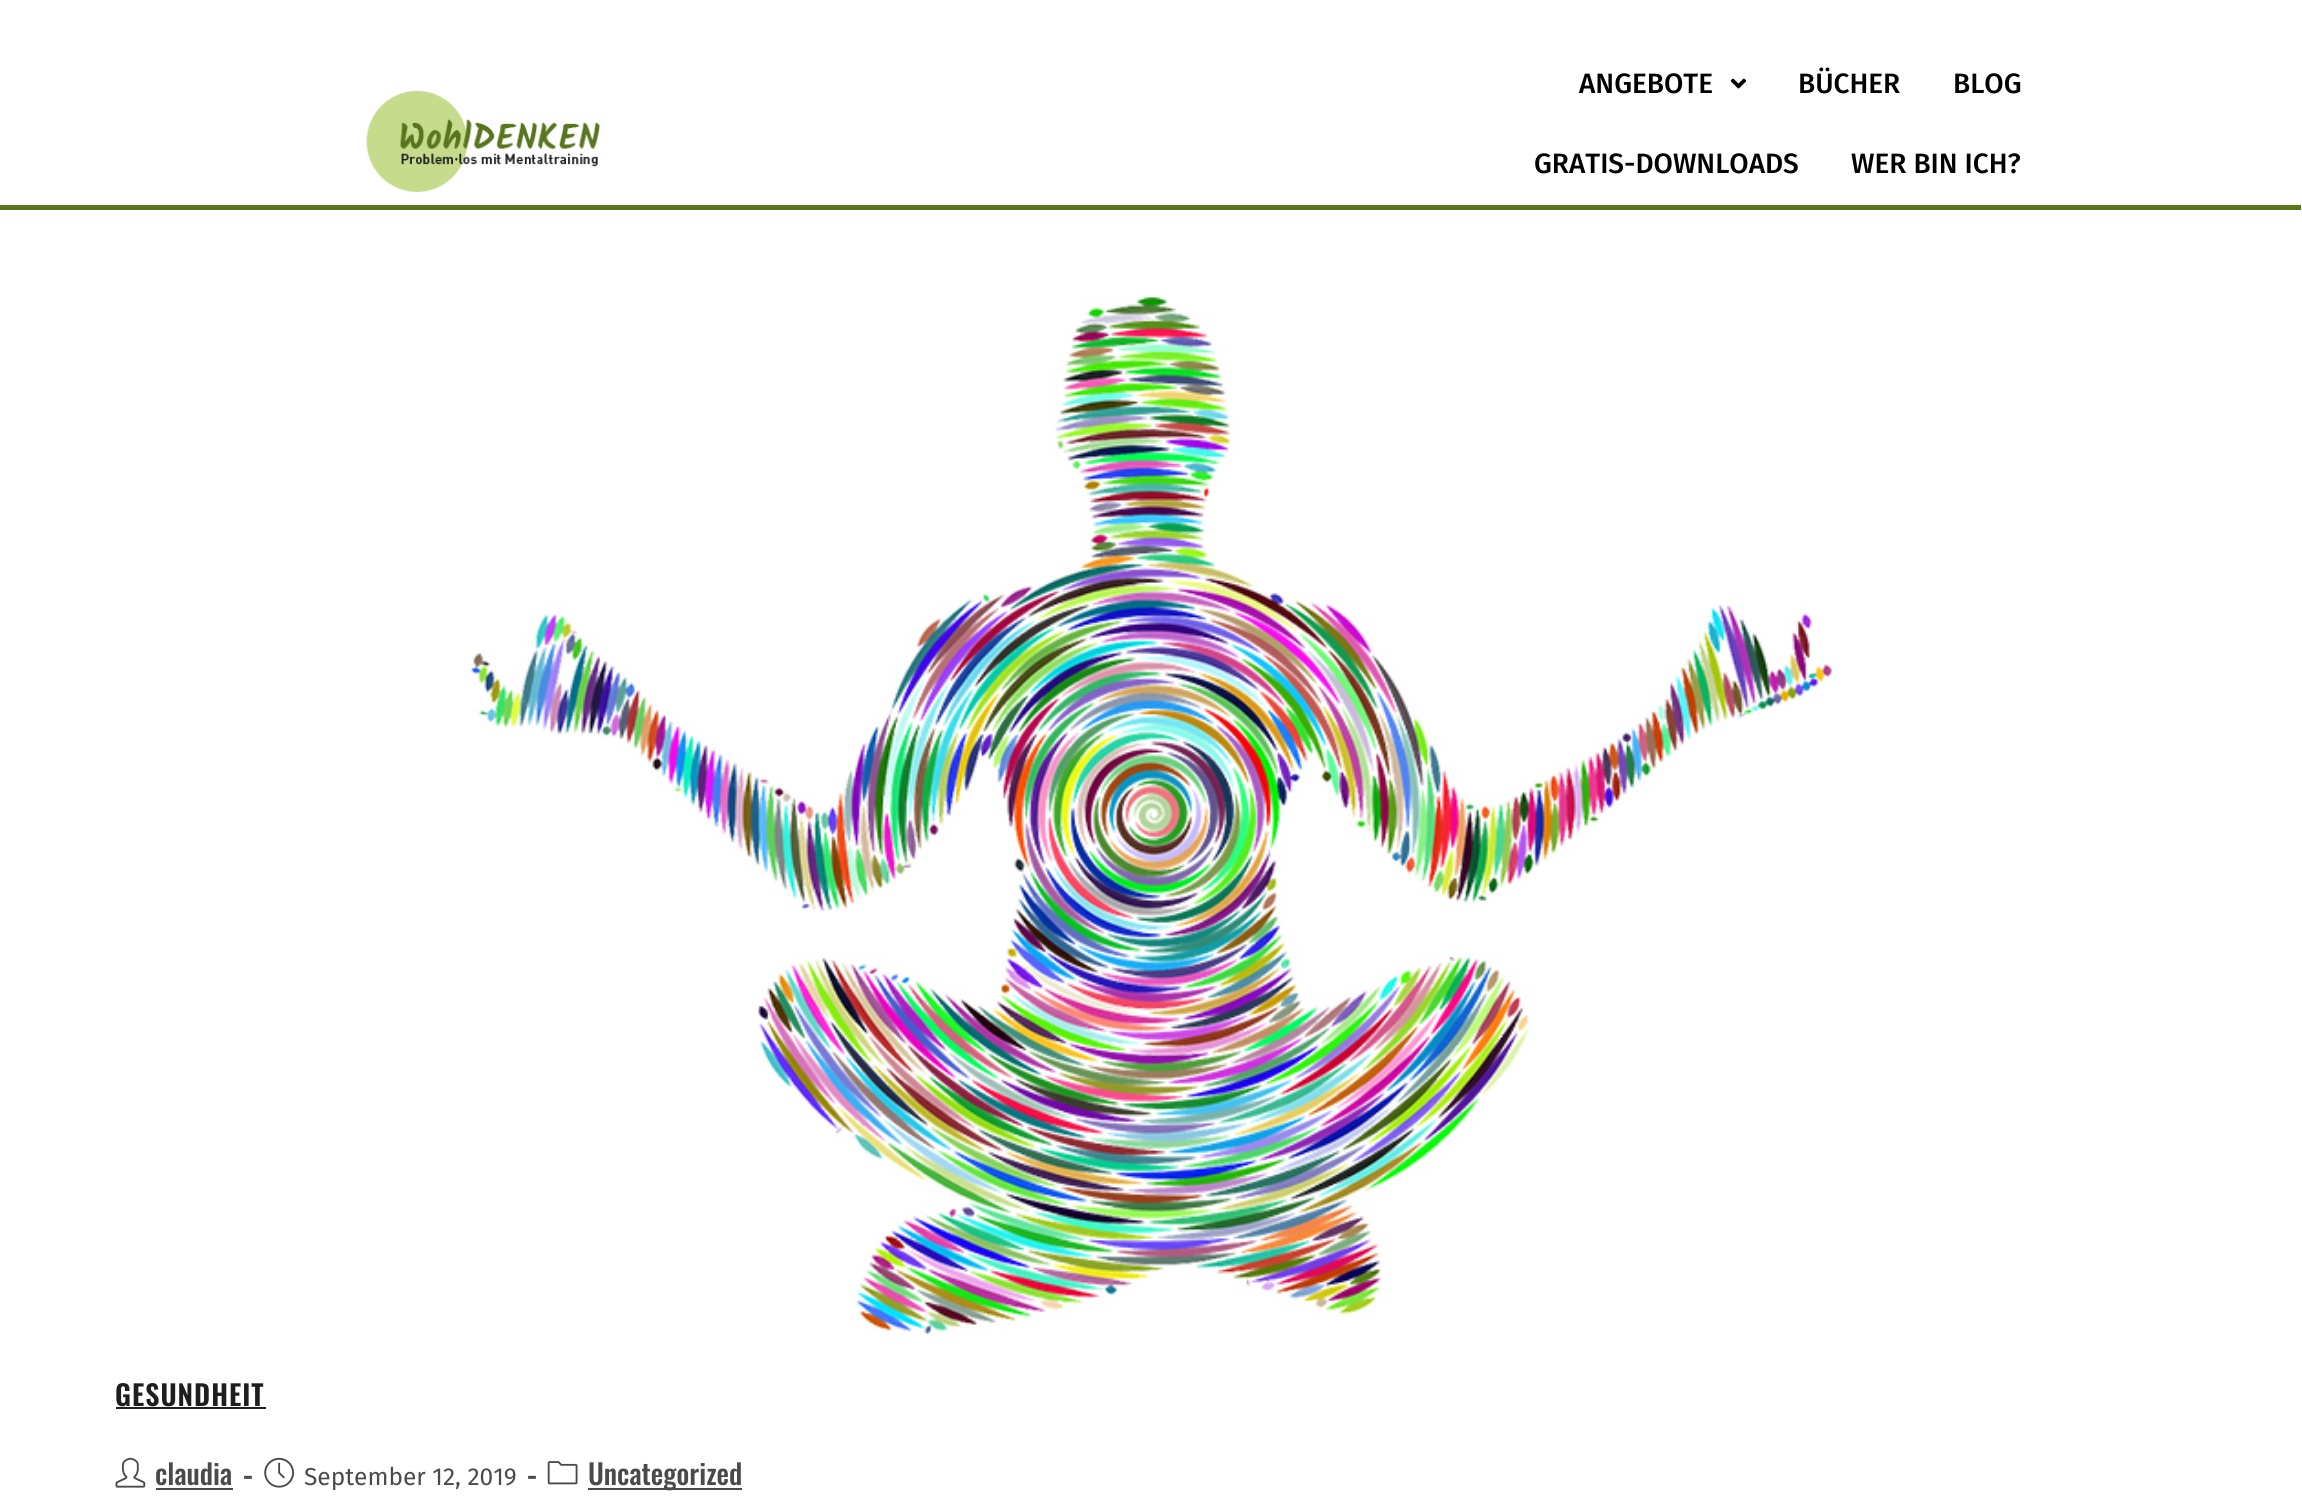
#include <cairo.h>
#include <math.h>
#include <stddef.h>

static cairo_t *ctx;

static void use_color(int r, int g, int b) {
    cairo_set_source_rgb(ctx, r / 255.0, g / 255.0, b / 255.0);
}

static void spaced_text(double x, double y, const char *s, double letter, double word) {
    cairo_move_to(ctx, x, y);
    while (*s) {
        char ch[5] = {0};
        int n = 0;
        do ch[n++] = *s++; while ((*s & 0xC0) == 0x80);
        cairo_show_text(ctx, ch);
        cairo_rel_move_to(ctx, letter + word * (*ch == ' '), 0);
    }
}

static void picture(const char *path, double x, double y, double w, double h) {
    cairo_surface_t *image = cairo_image_surface_create_from_png(path);
    cairo_save(ctx);
    cairo_set_source_surface(ctx, image, x, y);
    cairo_rectangle(ctx, x, y, w, h);
    cairo_fill(ctx);
    cairo_restore(ctx);
    cairo_surface_destroy(image);
}

int main(void) {
    cairo_surface_t *surface = cairo_image_surface_create(CAIRO_FORMAT_RGB24, 2302, 1510);
    ctx = cairo_create(surface);
    cairo_font_options_t *options = cairo_font_options_create();
    cairo_font_options_set_hint_metrics(options, CAIRO_HINT_METRICS_OFF);
    cairo_font_options_set_hint_style(options, CAIRO_HINT_STYLE_NONE);
    cairo_set_font_options(ctx, options);
    cairo_set_miter_limit(ctx, 4);
    use_color(255, 255, 255);
    cairo_paint(ctx);
    use_color(88, 118, 28);
    cairo_rectangle(ctx, 0, 205, 2301, 5);
    cairo_fill(ctx);
    picture("img1.png", 366, 90, 234, 102);
    cairo_select_font_face(ctx, "Fira Sans Medium", CAIRO_FONT_SLANT_NORMAL, CAIRO_FONT_WEIGHT_NORMAL);
    cairo_set_font_size(ctx, 28);
    use_color(0, 0, 0);
    cairo_move_to(ctx, 1579, 93);
    cairo_show_text(ctx, "ANGEBOTE");
    picture("img2.png", 1730, 78, 17, 11);
    cairo_move_to(ctx, 1798, 93);
    cairo_show_text(ctx, "BÜCHER");
    cairo_move_to(ctx, 1953, 93);
    cairo_show_text(ctx, "BLOG");
    cairo_move_to(ctx, 1534, 173);
    cairo_show_text(ctx, "GRATIS-DOWNLOADS");
    cairo_move_to(ctx, 1851, 173);
    cairo_show_text(ctx, "WER BIN ICH?");
    picture("img3.png", 471, 297, 1361, 1037);
    cairo_select_font_face(ctx, "Oswald SemiBold", CAIRO_FONT_SLANT_NORMAL, CAIRO_FONT_WEIGHT_NORMAL);
    use_color(30, 30, 30);
    spaced_text(115, 1406, "GESUNDHEIT", 1, 0);
    cairo_rectangle(ctx, 116, 1407, 150, 2);
    cairo_fill(ctx);
    picture("img4.png", 115, 1457, 31, 31);
    cairo_select_font_face(ctx, "Oswald Medium", CAIRO_FONT_SLANT_NORMAL, CAIRO_FONT_WEIGHT_NORMAL);
    use_color(74, 74, 74);
    cairo_move_to(ctx, 155, 1485);
    cairo_show_text(ctx, "claudia");
    cairo_rectangle(ctx, 156, 1488, 77, 2);
    cairo_fill(ctx);
    cairo_select_font_face(ctx, "Fira Sans", CAIRO_FONT_SLANT_NORMAL, CAIRO_FONT_WEIGHT_BOLD);
    cairo_set_font_size(ctx, 24.5);
    cairo_move_to(ctx, 243, 1485);
    cairo_show_text(ctx, "-");
    picture("img5.png", 264, 1457, 30, 31);
    cairo_select_font_face(ctx, "Fira Sans", CAIRO_FONT_SLANT_NORMAL, CAIRO_FONT_WEIGHT_NORMAL);
    cairo_move_to(ctx, 304, 1485);
    cairo_show_text(ctx, "September 12, 2019");
    cairo_select_font_face(ctx, "Fira Sans", CAIRO_FONT_SLANT_NORMAL, CAIRO_FONT_WEIGHT_BOLD);
    cairo_move_to(ctx, 527, 1485);
    cairo_show_text(ctx, "-");
    picture("img6.png", 547, 1461, 31, 24);
    cairo_rectangle(ctx, 588, 1488, 154, 2);
    cairo_fill(ctx);
    cairo_select_font_face(ctx, "Oswald Medium", CAIRO_FONT_SLANT_NORMAL, CAIRO_FONT_WEIGHT_NORMAL);
    cairo_set_font_size(ctx, 28);
    cairo_move_to(ctx, 588, 1485);
    cairo_show_text(ctx, "Uncategorized");
    cairo_surface_write_to_png(surface, "result.png");
    cairo_font_options_destroy(options);
    cairo_destroy(ctx);
    cairo_surface_destroy(surface);
    return 0;
}
